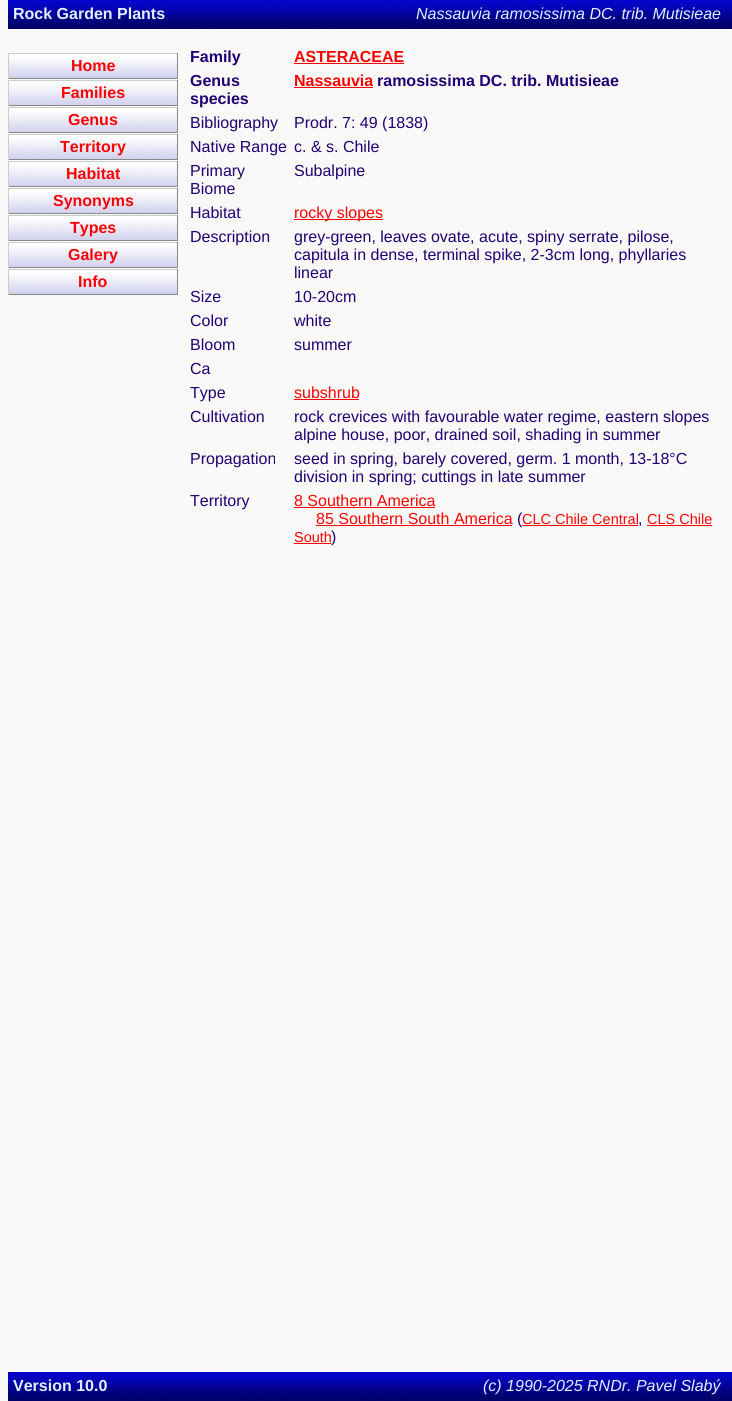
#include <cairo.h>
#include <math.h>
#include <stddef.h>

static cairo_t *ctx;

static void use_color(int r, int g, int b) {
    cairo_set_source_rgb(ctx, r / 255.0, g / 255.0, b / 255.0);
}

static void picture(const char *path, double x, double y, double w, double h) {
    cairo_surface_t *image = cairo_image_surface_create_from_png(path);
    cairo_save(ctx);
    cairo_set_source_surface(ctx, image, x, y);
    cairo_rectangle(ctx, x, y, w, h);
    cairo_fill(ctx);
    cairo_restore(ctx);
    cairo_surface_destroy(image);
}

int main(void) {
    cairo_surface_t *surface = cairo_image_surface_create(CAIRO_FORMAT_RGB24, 732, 1401);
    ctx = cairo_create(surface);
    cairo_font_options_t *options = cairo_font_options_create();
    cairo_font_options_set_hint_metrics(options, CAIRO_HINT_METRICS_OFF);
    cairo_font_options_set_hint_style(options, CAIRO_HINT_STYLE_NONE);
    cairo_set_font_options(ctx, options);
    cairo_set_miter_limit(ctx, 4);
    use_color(249, 249, 249);
    cairo_paint(ctx);
    picture("img1.png", 8, 0, 724, 29);
    cairo_select_font_face(ctx, "Liberation Sans", CAIRO_FONT_SLANT_NORMAL, CAIRO_FONT_WEIGHT_BOLD);
    cairo_set_font_size(ctx, 16);
    use_color(224, 240, 255);
    cairo_move_to(ctx, 13, 19);
    cairo_show_text(ctx, "Rock Garden Plants");
    cairo_select_font_face(ctx, "Liberation Sans", CAIRO_FONT_SLANT_ITALIC, CAIRO_FONT_WEIGHT_NORMAL);
    cairo_move_to(ctx, 416, 19);
    cairo_show_text(ctx, "Nassauvia ramosissima DC. trib. Mutisieae");
    picture("img2.png", 9, 54, 168, 24);
    use_color(204, 204, 204);
    cairo_rectangle(ctx, 8, 53, 170, 1);
    cairo_fill(ctx);
    use_color(136, 136, 136);
    cairo_rectangle(ctx, 177, 53, 1, 26);
    cairo_fill(ctx);
    cairo_rectangle(ctx, 8, 78, 170, 1);
    cairo_fill(ctx);
    use_color(204, 204, 204);
    cairo_rectangle(ctx, 8, 53, 1, 26);
    cairo_fill(ctx);
    cairo_select_font_face(ctx, "Liberation Sans", CAIRO_FONT_SLANT_NORMAL, CAIRO_FONT_WEIGHT_BOLD);
    use_color(255, 0, 0);
    cairo_move_to(ctx, 71, 71);
    cairo_show_text(ctx, "Home");
    picture("img2.png", 9, 81, 168, 24);
    use_color(204, 204, 204);
    cairo_rectangle(ctx, 8, 80, 170, 1);
    cairo_fill(ctx);
    use_color(136, 136, 136);
    cairo_rectangle(ctx, 177, 80, 1, 26);
    cairo_fill(ctx);
    cairo_rectangle(ctx, 8, 105, 170, 1);
    cairo_fill(ctx);
    use_color(204, 204, 204);
    cairo_rectangle(ctx, 8, 80, 1, 26);
    cairo_fill(ctx);
    use_color(255, 0, 0);
    cairo_move_to(ctx, 61, 98);
    cairo_show_text(ctx, "Families");
    picture("img2.png", 9, 108, 168, 24);
    use_color(204, 204, 204);
    cairo_rectangle(ctx, 8, 107, 170, 1);
    cairo_fill(ctx);
    use_color(136, 136, 136);
    cairo_rectangle(ctx, 177, 107, 1, 26);
    cairo_fill(ctx);
    cairo_rectangle(ctx, 8, 132, 170, 1);
    cairo_fill(ctx);
    use_color(204, 204, 204);
    cairo_rectangle(ctx, 8, 107, 1, 26);
    cairo_fill(ctx);
    use_color(255, 0, 0);
    cairo_move_to(ctx, 68, 125);
    cairo_show_text(ctx, "Genus");
    picture("img2.png", 9, 135, 168, 24);
    use_color(204, 204, 204);
    cairo_rectangle(ctx, 8, 134, 170, 1);
    cairo_fill(ctx);
    use_color(136, 136, 136);
    cairo_rectangle(ctx, 177, 134, 1, 26);
    cairo_fill(ctx);
    cairo_rectangle(ctx, 8, 159, 170, 1);
    cairo_fill(ctx);
    use_color(204, 204, 204);
    cairo_rectangle(ctx, 8, 134, 1, 26);
    cairo_fill(ctx);
    use_color(255, 0, 0);
    cairo_move_to(ctx, 60, 152);
    cairo_show_text(ctx, "Territory");
    picture("img2.png", 9, 162, 168, 24);
    use_color(204, 204, 204);
    cairo_rectangle(ctx, 8, 161, 170, 1);
    cairo_fill(ctx);
    use_color(136, 136, 136);
    cairo_rectangle(ctx, 177, 161, 1, 26);
    cairo_fill(ctx);
    cairo_rectangle(ctx, 8, 186, 170, 1);
    cairo_fill(ctx);
    use_color(204, 204, 204);
    cairo_rectangle(ctx, 8, 161, 1, 26);
    cairo_fill(ctx);
    use_color(255, 0, 0);
    cairo_move_to(ctx, 66, 179);
    cairo_show_text(ctx, "Habitat");
    picture("img2.png", 9, 189, 168, 24);
    use_color(204, 204, 204);
    cairo_rectangle(ctx, 8, 188, 170, 1);
    cairo_fill(ctx);
    use_color(136, 136, 136);
    cairo_rectangle(ctx, 177, 188, 1, 26);
    cairo_fill(ctx);
    cairo_rectangle(ctx, 8, 213, 170, 1);
    cairo_fill(ctx);
    use_color(204, 204, 204);
    cairo_rectangle(ctx, 8, 188, 1, 26);
    cairo_fill(ctx);
    use_color(255, 0, 0);
    cairo_move_to(ctx, 53, 206);
    cairo_show_text(ctx, "Synonyms");
    picture("img2.png", 9, 216, 168, 24);
    use_color(204, 204, 204);
    cairo_rectangle(ctx, 8, 215, 170, 1);
    cairo_fill(ctx);
    use_color(136, 136, 136);
    cairo_rectangle(ctx, 177, 215, 1, 26);
    cairo_fill(ctx);
    cairo_rectangle(ctx, 8, 240, 170, 1);
    cairo_fill(ctx);
    use_color(204, 204, 204);
    cairo_rectangle(ctx, 8, 215, 1, 26);
    cairo_fill(ctx);
    use_color(255, 0, 0);
    cairo_move_to(ctx, 70, 233);
    cairo_show_text(ctx, "Types");
    picture("img2.png", 9, 243, 168, 24);
    use_color(204, 204, 204);
    cairo_rectangle(ctx, 8, 242, 170, 1);
    cairo_fill(ctx);
    use_color(136, 136, 136);
    cairo_rectangle(ctx, 177, 242, 1, 26);
    cairo_fill(ctx);
    cairo_rectangle(ctx, 8, 267, 170, 1);
    cairo_fill(ctx);
    use_color(204, 204, 204);
    cairo_rectangle(ctx, 8, 242, 1, 26);
    cairo_fill(ctx);
    use_color(255, 0, 0);
    cairo_move_to(ctx, 68, 260);
    cairo_show_text(ctx, "Galery");
    picture("img2.png", 9, 270, 168, 24);
    use_color(204, 204, 204);
    cairo_rectangle(ctx, 8, 269, 170, 1);
    cairo_fill(ctx);
    use_color(136, 136, 136);
    cairo_rectangle(ctx, 177, 269, 1, 26);
    cairo_fill(ctx);
    cairo_rectangle(ctx, 8, 294, 170, 1);
    cairo_fill(ctx);
    use_color(204, 204, 204);
    cairo_rectangle(ctx, 8, 269, 1, 26);
    cairo_fill(ctx);
    use_color(255, 0, 0);
    cairo_move_to(ctx, 78, 287);
    cairo_show_text(ctx, "Info");
    use_color(32, 0, 112);
    cairo_move_to(ctx, 190, 62);
    cairo_show_text(ctx, "Family");
    use_color(255, 0, 0);
    cairo_move_to(ctx, 294, 62);
    cairo_show_text(ctx, "ASTERACEAE");
    cairo_rectangle(ctx, 294, 63, 110, 1);
    cairo_fill(ctx);
    use_color(32, 0, 112);
    cairo_move_to(ctx, 190, 86);
    cairo_show_text(ctx, "Genus");
    cairo_move_to(ctx, 190, 104);
    cairo_show_text(ctx, "species");
    use_color(255, 0, 0);
    cairo_move_to(ctx, 294, 86);
    cairo_show_text(ctx, "Nassauvia");
    cairo_rectangle(ctx, 294, 87, 79, 1);
    cairo_fill(ctx);
    use_color(32, 0, 112);
    cairo_move_to(ctx, 377, 86);
    cairo_show_text(ctx, "ramosissima DC. trib. Mutisieae");
    cairo_select_font_face(ctx, "Liberation Sans", CAIRO_FONT_SLANT_NORMAL, CAIRO_FONT_WEIGHT_NORMAL);
    cairo_move_to(ctx, 190, 128);
    cairo_show_text(ctx, "Bibliography");
    cairo_move_to(ctx, 294, 128);
    cairo_show_text(ctx, "Prodr. 7: 49 (1838)");
    cairo_move_to(ctx, 190, 152);
    cairo_show_text(ctx, "Native Range");
    cairo_move_to(ctx, 294, 152);
    cairo_show_text(ctx, "c. & s. Chile");
    cairo_move_to(ctx, 190, 176);
    cairo_show_text(ctx, "Primary");
    cairo_move_to(ctx, 190, 194);
    cairo_show_text(ctx, "Biome");
    cairo_move_to(ctx, 294, 176);
    cairo_show_text(ctx, "Subalpine");
    cairo_move_to(ctx, 190, 218);
    cairo_show_text(ctx, "Habitat");
    use_color(255, 0, 0);
    cairo_rectangle(ctx, 294, 219, 89, 1);
    cairo_fill(ctx);
    cairo_move_to(ctx, 294, 218);
    cairo_show_text(ctx, "rocky slopes");
    use_color(32, 0, 112);
    cairo_move_to(ctx, 190, 242);
    cairo_show_text(ctx, "Description");
    cairo_move_to(ctx, 294, 242);
    cairo_show_text(ctx, "grey-green, leaves ovate, acute, spiny serrate, pilose,");
    cairo_move_to(ctx, 294, 260);
    cairo_show_text(ctx, "capitula in dense, terminal spike, 2-3cm long, phyllaries");
    cairo_move_to(ctx, 294, 278);
    cairo_show_text(ctx, "linear");
    cairo_move_to(ctx, 190, 302);
    cairo_show_text(ctx, "Size");
    cairo_move_to(ctx, 294, 302);
    cairo_show_text(ctx, "10-20cm");
    cairo_move_to(ctx, 190, 326);
    cairo_show_text(ctx, "Color");
    cairo_move_to(ctx, 294, 326);
    cairo_show_text(ctx, "white");
    cairo_move_to(ctx, 190, 350);
    cairo_show_text(ctx, "Bloom");
    cairo_move_to(ctx, 294, 350);
    cairo_show_text(ctx, "summer");
    cairo_move_to(ctx, 190, 374);
    cairo_show_text(ctx, "Ca");
    cairo_move_to(ctx, 190, 398);
    cairo_show_text(ctx, "Type");
    use_color(255, 0, 0);
    cairo_move_to(ctx, 294, 398);
    cairo_show_text(ctx, "subshrub");
    cairo_rectangle(ctx, 294, 399, 65, 1);
    cairo_fill(ctx);
    use_color(32, 0, 112);
    cairo_move_to(ctx, 190, 422);
    cairo_show_text(ctx, "Cultivation");
    cairo_move_to(ctx, 294, 422);
    cairo_show_text(ctx, "rock crevices with favourable water regime, eastern slopes");
    cairo_move_to(ctx, 294, 440);
    cairo_show_text(ctx, "alpine house, poor, drained soil, shading in summer");
    cairo_move_to(ctx, 190, 464);
    cairo_show_text(ctx, "Propagation");
    cairo_move_to(ctx, 294, 464);
    cairo_show_text(ctx, "seed in spring, barely covered, germ. 1 month, 13-18°C");
    cairo_move_to(ctx, 294, 482);
    cairo_show_text(ctx, "division in spring; cuttings in late summer");
    cairo_move_to(ctx, 190, 506);
    cairo_show_text(ctx, "Territory");
    use_color(255, 0, 0);
    cairo_move_to(ctx, 294, 506);
    cairo_show_text(ctx, "8 Southern America");
    cairo_rectangle(ctx, 294, 507, 141, 1);
    cairo_fill(ctx);
    cairo_move_to(ctx, 316, 524);
    cairo_show_text(ctx, "85 Southern South America");
    cairo_rectangle(ctx, 316, 525, 196, 1);
    cairo_fill(ctx);
    use_color(32, 0, 112);
    cairo_move_to(ctx, 517, 524);
    cairo_show_text(ctx, "(");
    cairo_set_font_size(ctx, 14.5);
    use_color(255, 0, 0);
    cairo_move_to(ctx, 522, 524);
    cairo_show_text(ctx, "CLC Chile Central");
    cairo_rectangle(ctx, 522, 525, 116, 1);
    cairo_fill(ctx);
    cairo_set_font_size(ctx, 16);
    use_color(32, 0, 112);
    cairo_move_to(ctx, 638, 524);
    cairo_show_text(ctx, ",");
    cairo_set_font_size(ctx, 14.5);
    use_color(255, 0, 0);
    cairo_move_to(ctx, 647, 524);
    cairo_show_text(ctx, "CLS Chile");
    cairo_rectangle(ctx, 647, 525, 65, 1);
    cairo_fill(ctx);
    cairo_move_to(ctx, 294, 542);
    cairo_show_text(ctx, "South");
    cairo_rectangle(ctx, 294, 543, 37, 1);
    cairo_fill(ctx);
    cairo_set_font_size(ctx, 16);
    use_color(32, 0, 112);
    cairo_move_to(ctx, 331, 542);
    cairo_show_text(ctx, ")");
    picture("img1.png", 8, 1372, 724, 29);
    cairo_select_font_face(ctx, "Liberation Sans", CAIRO_FONT_SLANT_NORMAL, CAIRO_FONT_WEIGHT_BOLD);
    use_color(224, 240, 255);
    cairo_move_to(ctx, 13, 1391);
    cairo_show_text(ctx, "Version 10.0");
    cairo_select_font_face(ctx, "Liberation Sans", CAIRO_FONT_SLANT_ITALIC, CAIRO_FONT_WEIGHT_NORMAL);
    cairo_move_to(ctx, 483, 1391);
    cairo_show_text(ctx, "(c) 1990-2025 RNDr. Pavel Slabý");
    cairo_surface_write_to_png(surface, "result.png");
    cairo_font_options_destroy(options);
    cairo_destroy(ctx);
    cairo_surface_destroy(surface);
    return 0;
}
